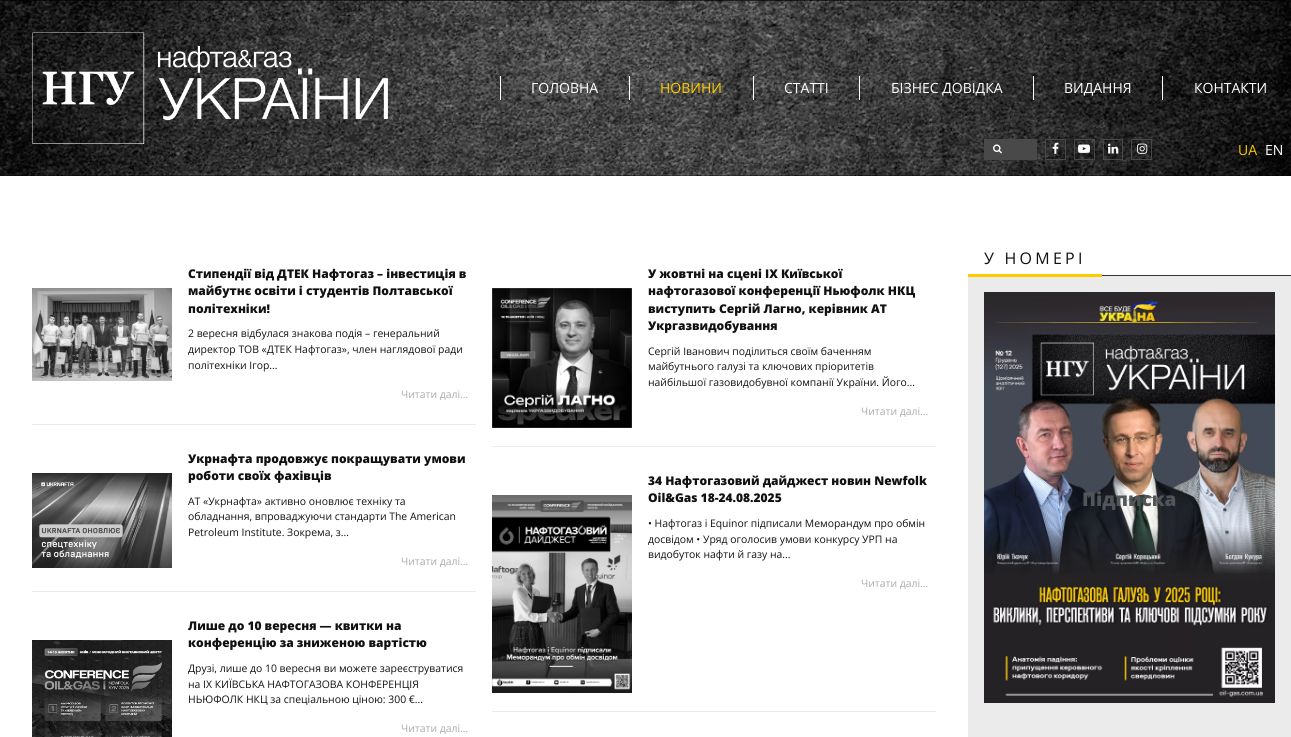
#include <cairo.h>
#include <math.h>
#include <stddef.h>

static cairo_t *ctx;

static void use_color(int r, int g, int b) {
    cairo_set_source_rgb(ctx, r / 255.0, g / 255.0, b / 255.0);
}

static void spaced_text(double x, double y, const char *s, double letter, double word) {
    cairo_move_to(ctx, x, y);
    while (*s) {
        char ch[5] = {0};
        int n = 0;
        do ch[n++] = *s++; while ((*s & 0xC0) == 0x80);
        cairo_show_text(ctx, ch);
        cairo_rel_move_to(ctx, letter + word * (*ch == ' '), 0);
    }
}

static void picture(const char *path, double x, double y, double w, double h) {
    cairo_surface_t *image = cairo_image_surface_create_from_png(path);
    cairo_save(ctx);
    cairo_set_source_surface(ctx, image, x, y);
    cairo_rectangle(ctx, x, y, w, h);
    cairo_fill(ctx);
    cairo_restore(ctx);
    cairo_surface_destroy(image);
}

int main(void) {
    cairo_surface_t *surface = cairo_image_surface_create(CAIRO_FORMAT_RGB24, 1291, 737);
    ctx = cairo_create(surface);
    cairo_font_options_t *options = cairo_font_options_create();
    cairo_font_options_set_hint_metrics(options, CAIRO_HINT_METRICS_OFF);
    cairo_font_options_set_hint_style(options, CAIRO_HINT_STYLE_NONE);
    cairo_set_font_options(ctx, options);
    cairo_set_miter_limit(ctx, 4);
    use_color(255, 255, 255);
    cairo_paint(ctx);
    use_color(0, 0, 0);
    cairo_rectangle(ctx, 0, 0, 1291, 176);
    cairo_fill(ctx);
    picture("img1.png", 0, 0, 1291, 176);
    picture("img2.png", 32, 32, 356, 112);
    use_color(255, 255, 255);
    cairo_rectangle(ctx, 500, 76, 1, 24);
    cairo_fill(ctx);
    cairo_select_font_face(ctx, "Open Sans", CAIRO_FONT_SLANT_NORMAL, CAIRO_FONT_WEIGHT_NORMAL);
    cairo_set_font_size(ctx, 14);
    cairo_move_to(ctx, 531, 93);
    cairo_show_text(ctx, "ГОЛОВНА");
    cairo_rectangle(ctx, 629, 76, 1, 24);
    cairo_fill(ctx);
    use_color(255, 203, 0);
    cairo_move_to(ctx, 660, 93);
    cairo_show_text(ctx, "НОВИНИ");
    use_color(255, 255, 255);
    cairo_rectangle(ctx, 753, 76, 1, 24);
    cairo_fill(ctx);
    cairo_move_to(ctx, 784, 93);
    cairo_show_text(ctx, "СТАТТІ");
    cairo_rectangle(ctx, 859, 76, 1, 24);
    cairo_fill(ctx);
    cairo_move_to(ctx, 891, 93);
    cairo_show_text(ctx, "БІЗНЕС ДОВІДКА");
    cairo_rectangle(ctx, 1033, 76, 1, 24);
    cairo_fill(ctx);
    cairo_move_to(ctx, 1064, 93);
    cairo_show_text(ctx, "ВИДАННЯ");
    cairo_rectangle(ctx, 1162, 76, 1, 24);
    cairo_fill(ctx);
    cairo_move_to(ctx, 1194, 93);
    cairo_show_text(ctx, "КОНТАКТИ");
    use_color(73, 73, 73);
    cairo_rectangle(ctx, 984, 139, 53, 21);
    cairo_fill(ctx);
    picture("img3.png", 993, 144, 9, 10);
    cairo_rectangle(ctx, 1045.5, 139.5, 20, 20);
    cairo_set_line_width(ctx, 1);
    cairo_stroke(ctx);
    picture("img4.png", 1052, 142, 7, 12);
    cairo_rectangle(ctx, 1074.5, 139.5, 20, 20);
    cairo_stroke(ctx);
    picture("img5.png", 1078, 144, 12, 9);
    cairo_rectangle(ctx, 1103.5, 139.5, 19, 20);
    cairo_stroke(ctx);
    picture("img6.png", 1108, 143, 11, 11);
    cairo_rectangle(ctx, 1131.5, 139.5, 20, 20);
    cairo_stroke(ctx);
    picture("img7.png", 1137, 143, 11, 11);
    use_color(255, 203, 0);
    cairo_move_to(ctx, 1238, 155);
    cairo_show_text(ctx, "UA");
    use_color(255, 255, 255);
    cairo_move_to(ctx, 1265, 155);
    cairo_show_text(ctx, "EN");
    use_color(235, 235, 235);
    cairo_rectangle(ctx, 32, 424, 444, 1);
    cairo_fill(ctx);
    picture("img8.png", 32, 288, 140, 93);
    cairo_select_font_face(ctx, "Open Sans ExtraBold", CAIRO_FONT_SLANT_NORMAL, CAIRO_FONT_WEIGHT_NORMAL);
    cairo_set_font_size(ctx, 12);
    use_color(17, 17, 17);
    cairo_move_to(ctx, 188, 278);
    cairo_show_text(ctx, "Стипендії від ДТЕК Нафтогаз – інвестиція в");
    cairo_move_to(ctx, 188, 295);
    cairo_show_text(ctx, "майбутнє освіти і студентів Полтавської");
    cairo_move_to(ctx, 188, 313);
    cairo_show_text(ctx, "політехніки!");
    cairo_select_font_face(ctx, "Open Sans", CAIRO_FONT_SLANT_NORMAL, CAIRO_FONT_WEIGHT_NORMAL);
    cairo_set_font_size(ctx, 10.4);
    cairo_move_to(ctx, 188, 337);
    cairo_show_text(ctx, "2 вересня відбулася знакова подія – генеральний");
    cairo_move_to(ctx, 188, 353);
    cairo_show_text(ctx, "директор ТОВ «ДТЕК Нафтогаз», член наглядової ради");
    cairo_move_to(ctx, 188, 369);
    cairo_show_text(ctx, "політехніки Ігор...");
    use_color(170, 170, 170);
    cairo_move_to(ctx, 401, 398);
    cairo_show_text(ctx, "Читати далі...");
    use_color(235, 235, 235);
    cairo_rectangle(ctx, 32, 591, 444, 1);
    cairo_fill(ctx);
    picture("img9.png", 32, 473, 140, 95);
    cairo_select_font_face(ctx, "Open Sans ExtraBold", CAIRO_FONT_SLANT_NORMAL, CAIRO_FONT_WEIGHT_NORMAL);
    cairo_set_font_size(ctx, 12);
    use_color(17, 17, 17);
    cairo_move_to(ctx, 188, 463);
    cairo_show_text(ctx, "Укрнафта продовжує покращувати умови");
    cairo_move_to(ctx, 188, 480);
    cairo_show_text(ctx, "роботи своїх фахівців");
    cairo_select_font_face(ctx, "Open Sans", CAIRO_FONT_SLANT_NORMAL, CAIRO_FONT_WEIGHT_NORMAL);
    cairo_set_font_size(ctx, 10.4);
    cairo_move_to(ctx, 188, 505);
    cairo_show_text(ctx, "АТ «Укрнафта» активно оновлює техніку та");
    cairo_move_to(ctx, 188, 520);
    cairo_show_text(ctx, "обладнання, впроваджуючи стандарти The American");
    cairo_move_to(ctx, 188, 536);
    cairo_show_text(ctx, "Petroleum Institute. Зокрема, з...");
    use_color(170, 170, 170);
    cairo_move_to(ctx, 401, 565);
    cairo_show_text(ctx, "Читати далі...");
    picture("img10.png", 32, 640, 140, 97);
    cairo_select_font_face(ctx, "Open Sans ExtraBold", CAIRO_FONT_SLANT_NORMAL, CAIRO_FONT_WEIGHT_NORMAL);
    cairo_set_font_size(ctx, 12);
    use_color(17, 17, 17);
    cairo_move_to(ctx, 188, 630);
    cairo_show_text(ctx, "Лише до 10 вересня — квитки на");
    cairo_move_to(ctx, 188, 647);
    cairo_show_text(ctx, "конференцію за зниженою вартістю");
    cairo_select_font_face(ctx, "Open Sans", CAIRO_FONT_SLANT_NORMAL, CAIRO_FONT_WEIGHT_NORMAL);
    cairo_set_font_size(ctx, 10.4);
    cairo_move_to(ctx, 188, 672);
    cairo_show_text(ctx, "Друзі, лише до 10 вересня ви можете зареєструватися");
    cairo_move_to(ctx, 188, 688);
    cairo_show_text(ctx, "на IX КИЇВСЬКА НАФТОГАЗОВА КОНФЕРЕНЦІЯ");
    cairo_move_to(ctx, 188, 703);
    cairo_show_text(ctx, "НЬЮФОЛК НКЦ за спеціальною ціною: 300 €...");
    use_color(170, 170, 170);
    cairo_move_to(ctx, 401, 732);
    cairo_show_text(ctx, "Читати далі...");
    use_color(235, 235, 235);
    cairo_rectangle(ctx, 492, 446, 444, 1);
    cairo_fill(ctx);
    picture("img11.png", 492, 288, 140, 140);
    cairo_select_font_face(ctx, "Open Sans ExtraBold", CAIRO_FONT_SLANT_NORMAL, CAIRO_FONT_WEIGHT_NORMAL);
    cairo_set_font_size(ctx, 12);
    use_color(17, 17, 17);
    cairo_move_to(ctx, 648, 278);
    cairo_show_text(ctx, "У жовтні на сцені IX Київської");
    cairo_move_to(ctx, 648, 295);
    cairo_show_text(ctx, "нафтогазової конференції Ньюфолк НКЦ");
    cairo_move_to(ctx, 648, 313);
    cairo_show_text(ctx, "виступить Сергій Лагно, керівник АТ");
    cairo_move_to(ctx, 648, 330);
    cairo_show_text(ctx, "Укргазвидобування");
    cairo_select_font_face(ctx, "Open Sans", CAIRO_FONT_SLANT_NORMAL, CAIRO_FONT_WEIGHT_NORMAL);
    cairo_set_font_size(ctx, 10.4);
    cairo_move_to(ctx, 648, 355);
    cairo_show_text(ctx, "Сергій Іванович поділиться своїм баченням");
    cairo_move_to(ctx, 648, 370);
    cairo_show_text(ctx, "майбутнього галузі та ключових пріоритетів");
    cairo_move_to(ctx, 648, 386);
    cairo_show_text(ctx, "найбільшої газовидобувної компанії України. Його...");
    use_color(170, 170, 170);
    cairo_move_to(ctx, 861, 415);
    cairo_show_text(ctx, "Читати далі...");
    use_color(235, 235, 235);
    cairo_rectangle(ctx, 492, 711, 444, 1);
    cairo_fill(ctx);
    picture("img12.png", 492, 495, 140, 198);
    cairo_select_font_face(ctx, "Open Sans ExtraBold", CAIRO_FONT_SLANT_NORMAL, CAIRO_FONT_WEIGHT_NORMAL);
    cairo_set_font_size(ctx, 12);
    use_color(17, 17, 17);
    cairo_move_to(ctx, 648, 485);
    cairo_show_text(ctx, "34 Нафтогазовий дайджест новин Newfolk");
    cairo_move_to(ctx, 648, 502);
    cairo_show_text(ctx, "Oil&Gas 18-24.08.2025");
    cairo_select_font_face(ctx, "Open Sans", CAIRO_FONT_SLANT_NORMAL, CAIRO_FONT_WEIGHT_NORMAL);
    cairo_set_font_size(ctx, 10.4);
    cairo_move_to(ctx, 648, 527);
    cairo_show_text(ctx, "• Нафтогаз і Equinor підписали Меморандум про обмін");
    cairo_move_to(ctx, 648, 543);
    cairo_show_text(ctx, "досвідом • Уряд оголосив умови конкурсу УРП на");
    cairo_move_to(ctx, 648, 558);
    cairo_show_text(ctx, "видобуток нафти й газу на...");
    use_color(170, 170, 170);
    cairo_move_to(ctx, 861, 587);
    cairo_show_text(ctx, "Читати далі...");
    use_color(51, 51, 51);
    cairo_rectangle(ctx, 1102, 275, 189, 1);
    cairo_fill(ctx);
    use_color(235, 235, 235);
    cairo_rectangle(ctx, 968, 276, 323, 461);
    cairo_fill(ctx);
    use_color(255, 203, 0);
    cairo_rectangle(ctx, 968, 274, 134, 3);
    cairo_fill(ctx);
    cairo_set_font_size(ctx, 16);
    use_color(17, 17, 17);
    spaced_text(984, 264, "У НОМЕРІ", 3.25, 0);
    picture("img13.png", 984, 292, 291, 411);
    cairo_select_font_face(ctx, "Open Sans ExtraBold", CAIRO_FONT_SLANT_NORMAL, CAIRO_FONT_WEIGHT_NORMAL);
    cairo_set_font_size(ctx, 19);
    use_color(82, 86, 89);
    cairo_move_to(ctx, 1082, 506);
    cairo_show_text(ctx, "Підписка");
    cairo_surface_write_to_png(surface, "result.png");
    cairo_font_options_destroy(options);
    cairo_destroy(ctx);
    cairo_surface_destroy(surface);
    return 0;
}
